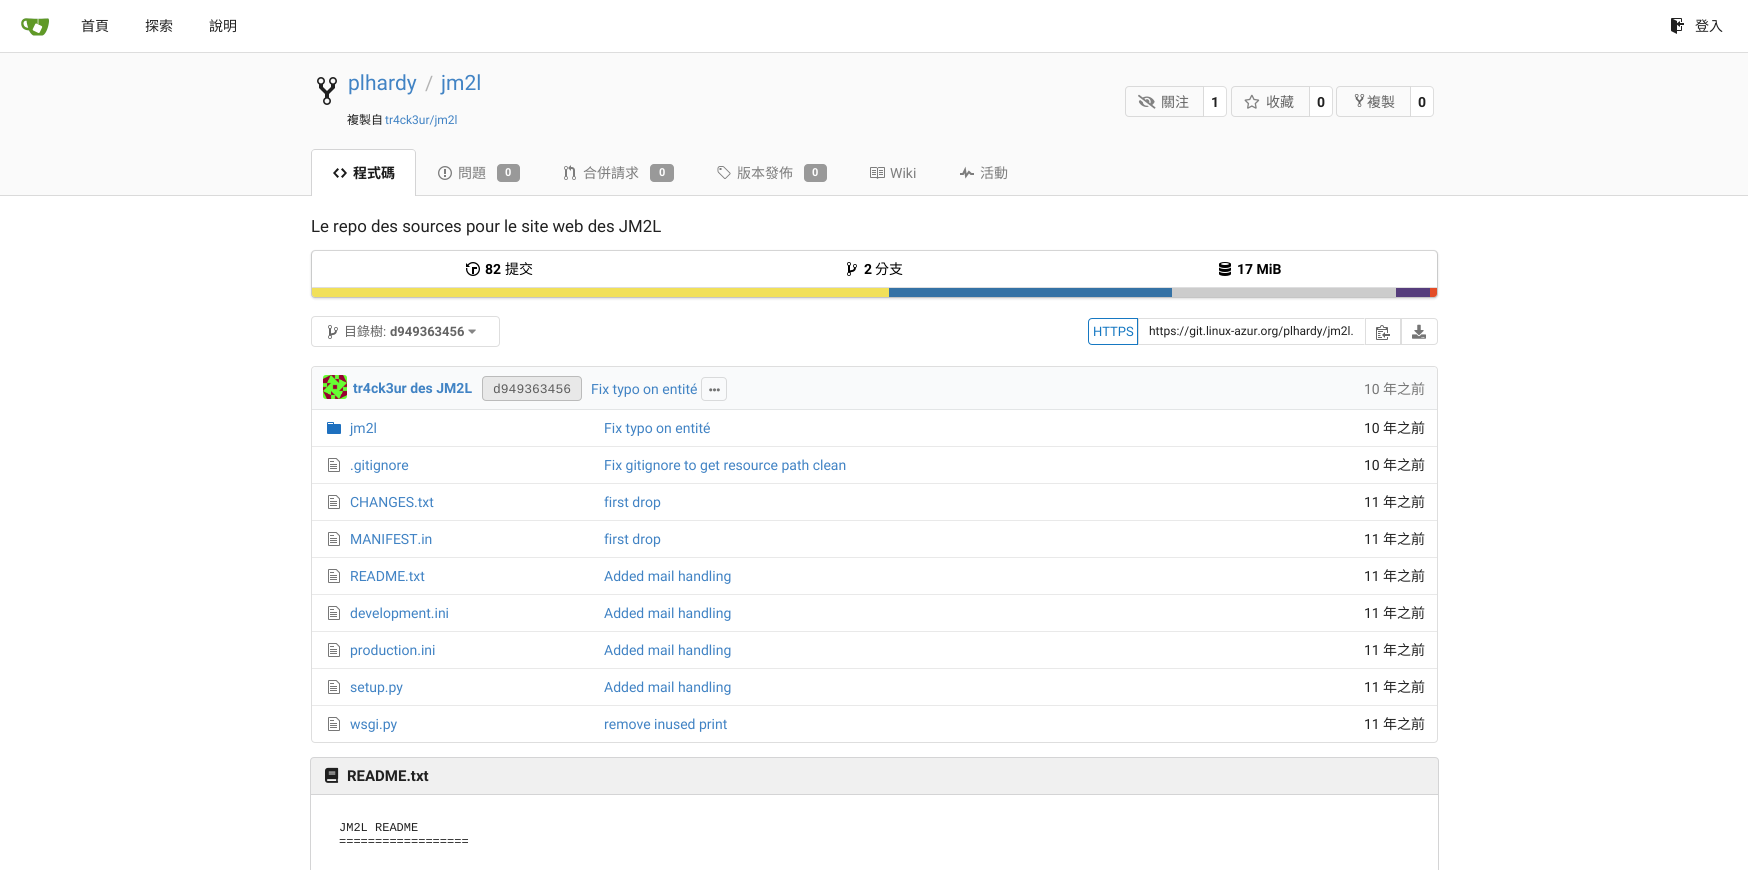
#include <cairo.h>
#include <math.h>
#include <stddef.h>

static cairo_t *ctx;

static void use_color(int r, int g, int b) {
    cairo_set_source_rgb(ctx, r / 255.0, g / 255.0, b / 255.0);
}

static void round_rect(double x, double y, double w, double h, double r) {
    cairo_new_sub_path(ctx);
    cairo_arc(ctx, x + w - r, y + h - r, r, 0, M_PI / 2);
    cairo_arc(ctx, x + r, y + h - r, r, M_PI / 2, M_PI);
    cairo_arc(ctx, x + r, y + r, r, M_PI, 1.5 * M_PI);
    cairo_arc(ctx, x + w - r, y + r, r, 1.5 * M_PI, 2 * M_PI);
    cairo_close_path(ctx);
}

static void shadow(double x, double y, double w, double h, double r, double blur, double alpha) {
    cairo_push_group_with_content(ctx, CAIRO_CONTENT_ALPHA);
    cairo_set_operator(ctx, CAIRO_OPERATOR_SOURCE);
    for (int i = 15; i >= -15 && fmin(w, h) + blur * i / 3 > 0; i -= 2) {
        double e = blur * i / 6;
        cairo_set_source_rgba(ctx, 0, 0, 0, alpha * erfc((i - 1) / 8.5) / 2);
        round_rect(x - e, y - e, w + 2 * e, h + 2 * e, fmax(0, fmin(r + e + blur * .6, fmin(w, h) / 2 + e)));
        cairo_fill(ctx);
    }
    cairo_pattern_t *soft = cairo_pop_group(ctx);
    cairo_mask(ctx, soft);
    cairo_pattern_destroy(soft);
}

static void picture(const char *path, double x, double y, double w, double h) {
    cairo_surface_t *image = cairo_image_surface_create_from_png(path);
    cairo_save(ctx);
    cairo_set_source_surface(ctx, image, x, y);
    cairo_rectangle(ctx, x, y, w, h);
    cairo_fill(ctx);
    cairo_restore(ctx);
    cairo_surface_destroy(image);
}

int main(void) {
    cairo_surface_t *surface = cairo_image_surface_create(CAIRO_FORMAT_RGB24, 1748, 870);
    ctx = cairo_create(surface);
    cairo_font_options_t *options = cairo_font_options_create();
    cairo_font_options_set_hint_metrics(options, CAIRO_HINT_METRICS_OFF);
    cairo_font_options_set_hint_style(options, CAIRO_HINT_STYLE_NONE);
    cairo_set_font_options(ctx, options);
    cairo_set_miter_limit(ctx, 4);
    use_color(255, 255, 255);
    cairo_paint(ctx);
    use_color(221, 221, 221);
    cairo_rectangle(ctx, 0, 52, 1748, 1);
    cairo_fill(ctx);
    picture("img1.png", 21, 18, 28, 18);
    cairo_select_font_face(ctx, "Noto Sans CJK TC", CAIRO_FONT_SLANT_NORMAL, CAIRO_FONT_WEIGHT_NORMAL);
    cairo_set_font_size(ctx, 14);
    use_color(33, 33, 33);
    cairo_move_to(ctx, 81, 31);
    cairo_show_text(ctx, "首頁");
    cairo_move_to(ctx, 145, 31);
    cairo_show_text(ctx, "探索");
    cairo_move_to(ctx, 209, 31);
    cairo_show_text(ctx, "說明");
    picture("img2.png", 1671, 18, 13, 16);
    cairo_move_to(ctx, 1695, 31);
    cairo_show_text(ctx, "登入");
    use_color(250, 250, 250);
    cairo_rectangle(ctx, 0, 53, 1748, 142);
    cairo_fill(ctx);
    picture("img3.png", 317, 77, 20, 28);
    cairo_select_font_face(ctx, "Roboto", CAIRO_FONT_SLANT_NORMAL, CAIRO_FONT_WEIGHT_NORMAL);
    cairo_set_font_size(ctx, 21);
    use_color(65, 131, 196);
    cairo_move_to(ctx, 348, 90);
    cairo_show_text(ctx, "plhardy");
    cairo_set_font_size(ctx, 20);
    use_color(180, 180, 180);
    cairo_move_to(ctx, 425, 90);
    cairo_show_text(ctx, "/");
    cairo_set_font_size(ctx, 21);
    use_color(65, 131, 196);
    cairo_move_to(ctx, 441, 90);
    cairo_show_text(ctx, "jm2l");
    cairo_select_font_face(ctx, "Noto Sans CJK TC", CAIRO_FONT_SLANT_NORMAL, CAIRO_FONT_WEIGHT_NORMAL);
    cairo_set_font_size(ctx, 12);
    use_color(33, 33, 33);
    cairo_move_to(ctx, 347, 124);
    cairo_show_text(ctx, "複製自");
    cairo_select_font_face(ctx, "Roboto", CAIRO_FONT_SLANT_NORMAL, CAIRO_FONT_WEIGHT_NORMAL);
    use_color(65, 131, 196);
    cairo_move_to(ctx, 385, 124);
    cairo_show_text(ctx, "tr4ck3ur/jm2l");
    cairo_new_path(ctx);
    cairo_move_to(ctx, 1129, 86.5);
    cairo_line_to(ctx, 1203.5, 86.5);
    cairo_line_to(ctx, 1203.5, 116.5);
    cairo_line_to(ctx, 1129, 116.5);
    cairo_curve_to(ctx, 1127, 116.5, 1125.5, 115, 1125.5, 113);
    cairo_line_to(ctx, 1125.5, 90);
    cairo_curve_to(ctx, 1125.5, 88, 1127, 86.5, 1129, 86.5);
    cairo_close_path(ctx);
    use_color(218, 218, 218);
    cairo_set_line_width(ctx, 1);
    cairo_stroke(ctx);
    picture("img4.png", 1138, 94, 18, 15);
    cairo_select_font_face(ctx, "Noto Sans CJK TC", CAIRO_FONT_SLANT_NORMAL, CAIRO_FONT_WEIGHT_NORMAL);
    cairo_set_font_size(ctx, 14);
    use_color(100, 100, 100);
    cairo_move_to(ctx, 1161, 107);
    cairo_show_text(ctx, "關注");
    use_color(255, 255, 255);
    cairo_new_path(ctx);
    cairo_move_to(ctx, 1204, 86);
    cairo_line_to(ctx, 1223, 86);
    cairo_curve_to(ctx, 1225, 86, 1227, 88, 1227, 90);
    cairo_line_to(ctx, 1227, 113);
    cairo_curve_to(ctx, 1227, 115, 1225, 117, 1223, 117);
    cairo_line_to(ctx, 1204, 117);
    cairo_close_path(ctx);
    cairo_fill(ctx);
    use_color(222, 222, 222);
    cairo_set_fill_rule(ctx, CAIRO_FILL_RULE_EVEN_ODD);
    cairo_new_path(ctx);
    cairo_move_to(ctx, 1204, 86);
    cairo_line_to(ctx, 1223, 86);
    cairo_curve_to(ctx, 1225, 86, 1227, 88, 1227, 90);
    cairo_line_to(ctx, 1227, 113);
    cairo_curve_to(ctx, 1227, 115, 1225, 117, 1223, 117);
    cairo_line_to(ctx, 1204, 117);
    cairo_close_path(ctx);
    cairo_move_to(ctx, 1204, 87);
    cairo_line_to(ctx, 1223, 87);
    cairo_curve_to(ctx, 1224.5, 87, 1226, 88.5, 1226, 90);
    cairo_line_to(ctx, 1226, 113);
    cairo_curve_to(ctx, 1226, 114.5, 1224.5, 116, 1223, 116);
    cairo_line_to(ctx, 1204, 116);
    cairo_close_path(ctx);
    cairo_fill(ctx);
    cairo_select_font_face(ctx, "Roboto", CAIRO_FONT_SLANT_NORMAL, CAIRO_FONT_WEIGHT_BOLD);
    use_color(33, 33, 33);
    cairo_move_to(ctx, 1211, 107);
    cairo_show_text(ctx, "1");
    cairo_new_path(ctx);
    cairo_move_to(ctx, 1235, 86.5);
    cairo_line_to(ctx, 1309.5, 86.5);
    cairo_line_to(ctx, 1309.5, 116.5);
    cairo_line_to(ctx, 1235, 116.5);
    cairo_curve_to(ctx, 1233, 116.5, 1231.5, 115, 1231.5, 113);
    cairo_line_to(ctx, 1231.5, 90);
    cairo_curve_to(ctx, 1231.5, 88, 1233, 86.5, 1235, 86.5);
    cairo_close_path(ctx);
    use_color(218, 218, 218);
    cairo_stroke(ctx);
    picture("img5.png", 1244, 94, 16, 15);
    cairo_select_font_face(ctx, "Noto Sans CJK TC", CAIRO_FONT_SLANT_NORMAL, CAIRO_FONT_WEIGHT_NORMAL);
    use_color(100, 100, 100);
    cairo_move_to(ctx, 1266, 107);
    cairo_show_text(ctx, "收藏");
    use_color(255, 255, 255);
    cairo_new_path(ctx);
    cairo_move_to(ctx, 1310, 86);
    cairo_line_to(ctx, 1329, 86);
    cairo_curve_to(ctx, 1331, 86, 1333, 88, 1333, 90);
    cairo_line_to(ctx, 1333, 113);
    cairo_curve_to(ctx, 1333, 115, 1331, 117, 1329, 117);
    cairo_line_to(ctx, 1310, 117);
    cairo_close_path(ctx);
    cairo_fill(ctx);
    use_color(222, 222, 222);
    cairo_new_path(ctx);
    cairo_move_to(ctx, 1310, 86);
    cairo_line_to(ctx, 1329, 86);
    cairo_curve_to(ctx, 1331, 86, 1333, 88, 1333, 90);
    cairo_line_to(ctx, 1333, 113);
    cairo_curve_to(ctx, 1333, 115, 1331, 117, 1329, 117);
    cairo_line_to(ctx, 1310, 117);
    cairo_close_path(ctx);
    cairo_move_to(ctx, 1310, 87);
    cairo_line_to(ctx, 1329, 87);
    cairo_curve_to(ctx, 1330.5, 87, 1332, 88.5, 1332, 90);
    cairo_line_to(ctx, 1332, 113);
    cairo_curve_to(ctx, 1332, 114.5, 1330.5, 116, 1329, 116);
    cairo_line_to(ctx, 1310, 116);
    cairo_close_path(ctx);
    cairo_fill(ctx);
    cairo_select_font_face(ctx, "Roboto", CAIRO_FONT_SLANT_NORMAL, CAIRO_FONT_WEIGHT_BOLD);
    use_color(33, 33, 33);
    cairo_move_to(ctx, 1317, 107);
    cairo_show_text(ctx, "0");
    cairo_new_path(ctx);
    cairo_move_to(ctx, 1340, 86.5);
    cairo_line_to(ctx, 1410.5, 86.5);
    cairo_line_to(ctx, 1410.5, 116.5);
    cairo_line_to(ctx, 1340, 116.5);
    cairo_curve_to(ctx, 1338, 116.5, 1336.5, 115, 1336.5, 113);
    cairo_line_to(ctx, 1336.5, 90);
    cairo_curve_to(ctx, 1336.5, 88, 1338, 86.5, 1340, 86.5);
    cairo_close_path(ctx);
    use_color(218, 218, 218);
    cairo_stroke(ctx);
    picture("img6.png", 1354, 94, 11, 13);
    cairo_select_font_face(ctx, "Noto Sans CJK TC", CAIRO_FONT_SLANT_NORMAL, CAIRO_FONT_WEIGHT_NORMAL);
    use_color(100, 100, 100);
    cairo_move_to(ctx, 1367, 107);
    cairo_show_text(ctx, "複製");
    use_color(255, 255, 255);
    cairo_new_path(ctx);
    cairo_move_to(ctx, 1411, 86);
    cairo_line_to(ctx, 1430, 86);
    cairo_curve_to(ctx, 1432, 86, 1434, 88, 1434, 90);
    cairo_line_to(ctx, 1434, 113);
    cairo_curve_to(ctx, 1434, 115, 1432, 117, 1430, 117);
    cairo_line_to(ctx, 1411, 117);
    cairo_close_path(ctx);
    cairo_fill(ctx);
    use_color(222, 222, 222);
    cairo_new_path(ctx);
    cairo_move_to(ctx, 1411, 86);
    cairo_line_to(ctx, 1430, 86);
    cairo_curve_to(ctx, 1432, 86, 1434, 88, 1434, 90);
    cairo_line_to(ctx, 1434, 113);
    cairo_curve_to(ctx, 1434, 115, 1432, 117, 1430, 117);
    cairo_line_to(ctx, 1411, 117);
    cairo_close_path(ctx);
    cairo_move_to(ctx, 1411, 87);
    cairo_line_to(ctx, 1430, 87);
    cairo_curve_to(ctx, 1431.5, 87, 1433, 88.5, 1433, 90);
    cairo_line_to(ctx, 1433, 113);
    cairo_curve_to(ctx, 1433, 114.5, 1431.5, 116, 1430, 116);
    cairo_line_to(ctx, 1411, 116);
    cairo_close_path(ctx);
    cairo_fill(ctx);
    cairo_select_font_face(ctx, "Roboto", CAIRO_FONT_SLANT_NORMAL, CAIRO_FONT_WEIGHT_BOLD);
    use_color(33, 33, 33);
    cairo_move_to(ctx, 1418, 107);
    cairo_show_text(ctx, "0");
    use_color(218, 218, 218);
    cairo_rectangle(ctx, 0, 195, 1748, 1);
    cairo_fill(ctx);
    use_color(255, 255, 255);
    cairo_new_path(ctx);
    cairo_move_to(ctx, 315, 149);
    cairo_line_to(ctx, 412, 149);
    cairo_curve_to(ctx, 414, 149, 416, 151, 416, 153);
    cairo_line_to(ctx, 416, 196);
    cairo_line_to(ctx, 311, 196);
    cairo_line_to(ctx, 311, 153);
    cairo_curve_to(ctx, 311, 151, 313, 149, 315, 149);
    cairo_close_path(ctx);
    cairo_fill(ctx);
    use_color(212, 212, 213);
    cairo_new_path(ctx);
    cairo_move_to(ctx, 315, 149);
    cairo_line_to(ctx, 412, 149);
    cairo_curve_to(ctx, 414, 149, 416, 151, 416, 153);
    cairo_line_to(ctx, 416, 196);
    cairo_line_to(ctx, 311, 196);
    cairo_line_to(ctx, 311, 153);
    cairo_curve_to(ctx, 311, 151, 313, 149, 315, 149);
    cairo_close_path(ctx);
    cairo_move_to(ctx, 315, 150);
    cairo_line_to(ctx, 412, 150);
    cairo_curve_to(ctx, 414, 150, 415, 151, 415, 153);
    cairo_line_to(ctx, 415, 196);
    cairo_line_to(ctx, 312, 196);
    cairo_line_to(ctx, 312, 153);
    cairo_curve_to(ctx, 312, 151, 313, 150, 315, 150);
    cairo_close_path(ctx);
    cairo_fill(ctx);
    picture("img7.png", 333, 168, 14, 10);
    cairo_select_font_face(ctx, "Noto Sans CJK TC", CAIRO_FONT_SLANT_NORMAL, CAIRO_FONT_WEIGHT_BOLD);
    use_color(26, 26, 26);
    cairo_move_to(ctx, 353, 178);
    cairo_show_text(ctx, "程式碼");
    picture("img8.png", 438, 166, 14, 14);
    cairo_select_font_face(ctx, "Noto Sans CJK TC", CAIRO_FONT_SLANT_NORMAL, CAIRO_FONT_WEIGHT_NORMAL);
    use_color(125, 125, 125);
    cairo_move_to(ctx, 458, 178);
    cairo_show_text(ctx, "問題");
    use_color(153, 153, 153);
    round_rect(497, 164, 23, 18, 4);
    cairo_fill(ctx);
    cairo_select_font_face(ctx, "Roboto", CAIRO_FONT_SLANT_NORMAL, CAIRO_FONT_WEIGHT_BOLD);
    cairo_set_font_size(ctx, 11);
    use_color(255, 255, 255);
    cairo_move_to(ctx, 505, 176);
    cairo_show_text(ctx, "0");
    picture("img9.png", 564, 165, 12, 15);
    cairo_select_font_face(ctx, "Noto Sans CJK TC", CAIRO_FONT_SLANT_NORMAL, CAIRO_FONT_WEIGHT_NORMAL);
    cairo_set_font_size(ctx, 14);
    use_color(125, 125, 125);
    cairo_move_to(ctx, 583, 178);
    cairo_show_text(ctx, "合併請求");
    use_color(153, 153, 153);
    round_rect(650, 164, 24, 18, 4);
    cairo_fill(ctx);
    cairo_select_font_face(ctx, "Roboto", CAIRO_FONT_SLANT_NORMAL, CAIRO_FONT_WEIGHT_BOLD);
    cairo_set_font_size(ctx, 11);
    use_color(255, 255, 255);
    cairo_move_to(ctx, 659, 176);
    cairo_show_text(ctx, "0");
    picture("img10.png", 717, 166, 14, 13);
    cairo_select_font_face(ctx, "Noto Sans CJK TC", CAIRO_FONT_SLANT_NORMAL, CAIRO_FONT_WEIGHT_NORMAL);
    cairo_set_font_size(ctx, 14);
    use_color(125, 125, 125);
    cairo_move_to(ctx, 737, 178);
    cairo_show_text(ctx, "版本發佈");
    use_color(153, 153, 153);
    round_rect(804, 164, 23, 18, 4);
    cairo_fill(ctx);
    cairo_select_font_face(ctx, "Roboto", CAIRO_FONT_SLANT_NORMAL, CAIRO_FONT_WEIGHT_BOLD);
    cairo_set_font_size(ctx, 11);
    use_color(255, 255, 255);
    cairo_move_to(ctx, 812, 176);
    cairo_show_text(ctx, "0");
    picture("img11.png", 870, 167, 15, 12);
    cairo_select_font_face(ctx, "Roboto", CAIRO_FONT_SLANT_NORMAL, CAIRO_FONT_WEIGHT_NORMAL);
    cairo_set_font_size(ctx, 14);
    use_color(125, 125, 125);
    cairo_move_to(ctx, 890, 178);
    cairo_show_text(ctx, "Wiki");
    picture("img12.png", 960, 166, 14, 13);
    cairo_select_font_face(ctx, "Noto Sans CJK TC", CAIRO_FONT_SLANT_NORMAL, CAIRO_FONT_WEIGHT_NORMAL);
    cairo_move_to(ctx, 980, 178);
    cairo_show_text(ctx, "活動");
    cairo_select_font_face(ctx, "Roboto", CAIRO_FONT_SLANT_NORMAL, CAIRO_FONT_WEIGHT_NORMAL);
    cairo_set_font_size(ctx, 16.8);
    use_color(33, 33, 33);
    cairo_move_to(ctx, 311, 232);
    cairo_show_text(ctx, "Le repo des sources pour le site web des JM2L");
    use_color(34, 36, 38);
    shadow(311, 251, 1127, 48, 4, 1, 0.15);
    round_rect(311.5, 250.5, 1126, 47, 3.5);
    cairo_set_source_rgba(ctx, 0.133, 0.141, 0.149, 0.15);
    cairo_stroke(ctx);
    cairo_save(ctx);
    cairo_set_fill_rule(ctx, CAIRO_FILL_RULE_WINDING);
    round_rect(312, 251, 1125, 46, 3);
    cairo_clip(ctx);
    use_color(255, 255, 255);
    cairo_new_path(ctx);
    cairo_move_to(ctx, 316, 251);
    cairo_line_to(ctx, 1433, 251);
    cairo_curve_to(ctx, 1435, 251, 1437, 253, 1437, 255);
    cairo_line_to(ctx, 1437, 287);
    cairo_line_to(ctx, 312, 287);
    cairo_line_to(ctx, 312, 255);
    cairo_curve_to(ctx, 312, 253, 314, 251, 316, 251);
    cairo_close_path(ctx);
    cairo_fill(ctx);
    cairo_restore(ctx);
    picture("img13.png", 466, 262, 14, 14);
    cairo_select_font_face(ctx, "Roboto", CAIRO_FONT_SLANT_NORMAL, CAIRO_FONT_WEIGHT_BOLD);
    cairo_set_font_size(ctx, 14);
    use_color(0, 0, 0);
    cairo_move_to(ctx, 485, 274);
    cairo_show_text(ctx, "82");
    cairo_select_font_face(ctx, "Noto Sans CJK TC", CAIRO_FONT_SLANT_NORMAL, CAIRO_FONT_WEIGHT_NORMAL);
    cairo_move_to(ctx, 505, 274);
    cairo_show_text(ctx, "提交");
    picture("img14.png", 847, 262, 10, 14);
    cairo_select_font_face(ctx, "Roboto", CAIRO_FONT_SLANT_NORMAL, CAIRO_FONT_WEIGHT_BOLD);
    cairo_move_to(ctx, 864, 274);
    cairo_show_text(ctx, "2");
    cairo_select_font_face(ctx, "Noto Sans CJK TC", CAIRO_FONT_SLANT_NORMAL, CAIRO_FONT_WEIGHT_NORMAL);
    cairo_move_to(ctx, 875, 274);
    cairo_show_text(ctx, "分支");
    picture("img15.png", 1219, 262, 12, 14);
    cairo_select_font_face(ctx, "Roboto", CAIRO_FONT_SLANT_NORMAL, CAIRO_FONT_WEIGHT_BOLD);
    cairo_move_to(ctx, 1237, 274);
    cairo_show_text(ctx, "17 MiB");
    use_color(241, 224, 90);
    cairo_new_path(ctx);
    cairo_move_to(ctx, 312, 288);
    cairo_line_to(ctx, 889, 288);
    cairo_line_to(ctx, 889, 297);
    cairo_line_to(ctx, 315, 297);
    cairo_curve_to(ctx, 313.5, 297, 312, 295.5, 312, 294);
    cairo_close_path(ctx);
    cairo_fill(ctx);
    use_color(53, 114, 165);
    cairo_rectangle(ctx, 889, 288, 283, 9);
    cairo_fill(ctx);
    use_color(204, 204, 204);
    cairo_rectangle(ctx, 1172, 288, 224, 9);
    cairo_fill(ctx);
    use_color(86, 61, 124);
    cairo_rectangle(ctx, 1396, 288, 34, 9);
    cairo_fill(ctx);
    use_color(227, 76, 38);
    cairo_new_path(ctx);
    cairo_move_to(ctx, 1430, 288);
    cairo_line_to(ctx, 1437, 288);
    cairo_line_to(ctx, 1437, 294);
    cairo_curve_to(ctx, 1437, 295.5, 1435.5, 297, 1434, 297);
    cairo_line_to(ctx, 1430, 297);
    cairo_close_path(ctx);
    cairo_fill(ctx);
    round_rect(311.5, 316.5, 188, 30, 3.5);
    use_color(222, 222, 222);
    cairo_stroke(ctx);
    picture("img16.png", 328, 325, 10, 14);
    cairo_select_font_face(ctx, "Noto Sans CJK TC", CAIRO_FONT_SLANT_NORMAL, CAIRO_FONT_WEIGHT_NORMAL);
    cairo_set_font_size(ctx, 13);
    use_color(100, 100, 100);
    cairo_move_to(ctx, 344, 336);
    cairo_show_text(ctx, "目錄樹");
    cairo_select_font_face(ctx, "Roboto", CAIRO_FONT_SLANT_NORMAL, CAIRO_FONT_WEIGHT_NORMAL);
    cairo_move_to(ctx, 383, 336);
    cairo_show_text(ctx, ":");
    cairo_select_font_face(ctx, "Roboto", CAIRO_FONT_SLANT_NORMAL, CAIRO_FONT_WEIGHT_BOLD);
    cairo_move_to(ctx, 390, 336);
    cairo_show_text(ctx, "d949363456");
    picture("img17.png", 468, 329, 8, 5);
    cairo_new_path(ctx);
    cairo_move_to(ctx, 1092, 318.5);
    cairo_line_to(ctx, 1137.5, 318.5);
    cairo_line_to(ctx, 1137.5, 344.5);
    cairo_line_to(ctx, 1092, 344.5);
    cairo_curve_to(ctx, 1090, 344.5, 1088.5, 343, 1088.5, 341);
    cairo_line_to(ctx, 1088.5, 322);
    cairo_curve_to(ctx, 1088.5, 320, 1090, 318.5, 1092, 318.5);
    cairo_close_path(ctx);
    use_color(22, 120, 194);
    cairo_stroke(ctx);
    cairo_select_font_face(ctx, "Roboto", CAIRO_FONT_SLANT_NORMAL, CAIRO_FONT_WEIGHT_NORMAL);
    cairo_move_to(ctx, 1093, 336);
    cairo_show_text(ctx, "HTTPS");
    use_color(222, 222, 222);
    cairo_set_fill_rule(ctx, CAIRO_FILL_RULE_WINDING);
    cairo_new_path(ctx);
    cairo_move_to(ctx, 1138, 318);
    cairo_line_to(ctx, 1365, 318);
    cairo_line_to(ctx, 1364, 319);
    cairo_line_to(ctx, 1139, 319);
    cairo_close_path(ctx);
    cairo_fill(ctx);
    cairo_new_path(ctx);
    cairo_move_to(ctx, 1365, 345);
    cairo_line_to(ctx, 1138, 345);
    cairo_line_to(ctx, 1139, 344);
    cairo_line_to(ctx, 1364, 344);
    cairo_close_path(ctx);
    cairo_fill(ctx);
    cairo_set_source_rgba(ctx, 0.133, 0.141, 0.149, 0.15);
    cairo_new_path(ctx);
    cairo_move_to(ctx, 1138, 345);
    cairo_line_to(ctx, 1138, 318);
    cairo_line_to(ctx, 1139, 319);
    cairo_line_to(ctx, 1139, 344);
    cairo_close_path(ctx);
    cairo_fill(ctx);
    cairo_set_font_size(ctx, 12);
    use_color(33, 33, 33);
    cairo_move_to(ctx, 1149, 335);
    cairo_show_text(ctx, "https://git.linux-azur.org/plhardy/jm2l.");
    cairo_rectangle(ctx, 1365.5, 318.5, 35, 26);
    use_color(222, 222, 222);
    cairo_stroke(ctx);
    picture("img18.png", 1376, 325, 14, 15);
    cairo_new_path(ctx);
    cairo_move_to(ctx, 1401.5, 318.5);
    cairo_line_to(ctx, 1434, 318.5);
    cairo_curve_to(ctx, 1436, 318.5, 1437.5, 320, 1437.5, 322);
    cairo_line_to(ctx, 1437.5, 341);
    cairo_curve_to(ctx, 1437.5, 343, 1436, 344.5, 1434, 344.5);
    cairo_line_to(ctx, 1401.5, 344.5);
    cairo_close_path(ctx);
    cairo_stroke(ctx);
    picture("img19.png", 1412, 324, 14, 15);
    round_rect(311.5, 366.5, 1126, 376, 3.5);
    cairo_stroke(ctx);
    use_color(249, 250, 251);
    cairo_new_path(ctx);
    cairo_move_to(ctx, 316, 367);
    cairo_line_to(ctx, 1226, 367);
    cairo_line_to(ctx, 1226, 410);
    cairo_line_to(ctx, 312, 410);
    cairo_line_to(ctx, 312, 371);
    cairo_curve_to(ctx, 312, 369, 314, 367, 316, 367);
    cairo_close_path(ctx);
    cairo_fill(ctx);
    use_color(227, 229, 230);
    cairo_rectangle(ctx, 312, 409, 914, 1);
    cairo_fill(ctx);
    picture("img20.png", 323, 375, 24, 24);
    cairo_select_font_face(ctx, "Roboto", CAIRO_FONT_SLANT_NORMAL, CAIRO_FONT_WEIGHT_BOLD);
    cairo_set_font_size(ctx, 14);
    use_color(65, 131, 196);
    cairo_move_to(ctx, 353, 393);
    cairo_show_text(ctx, "tr4ck3ur des JM2L");
    use_color(232, 232, 232);
    round_rect(482.5, 376.5, 99, 24, 3.5);
    cairo_fill_preserve(ctx);
    use_color(187, 187, 187);
    cairo_stroke(ctx);
    cairo_select_font_face(ctx, "Liberation Mono", CAIRO_FONT_SLANT_NORMAL, CAIRO_FONT_WEIGHT_NORMAL);
    cairo_set_font_size(ctx, 13);
    use_color(93, 93, 93);
    cairo_move_to(ctx, 493, 393);
    cairo_show_text(ctx, "d949363456");
    cairo_select_font_face(ctx, "Roboto", CAIRO_FONT_SLANT_NORMAL, CAIRO_FONT_WEIGHT_NORMAL);
    cairo_set_font_size(ctx, 14);
    use_color(65, 131, 196);
    cairo_move_to(ctx, 591, 394);
    cairo_show_text(ctx, "Fix typo on entité");
    round_rect(701.5, 377.5, 25, 23, 3.5);
    use_color(217, 218, 219);
    cairo_stroke(ctx);
    picture("img21.png", 709, 388, 11, 4);
    use_color(249, 250, 251);
    cairo_new_path(ctx);
    cairo_move_to(ctx, 1226, 367);
    cairo_line_to(ctx, 1433, 367);
    cairo_curve_to(ctx, 1435, 367, 1437, 369, 1437, 371);
    cairo_line_to(ctx, 1437, 410);
    cairo_line_to(ctx, 1226, 410);
    cairo_close_path(ctx);
    cairo_fill(ctx);
    use_color(227, 229, 230);
    cairo_rectangle(ctx, 1226, 409, 211, 1);
    cairo_fill(ctx);
    use_color(118, 118, 118);
    cairo_move_to(ctx, 1364, 394);
    cairo_show_text(ctx, "10");
    cairo_select_font_face(ctx, "Noto Sans CJK TC", CAIRO_FONT_SLANT_NORMAL, CAIRO_FONT_WEIGHT_NORMAL);
    cairo_move_to(ctx, 1383, 394);
    cairo_show_text(ctx, "年之前");
    picture("img22.png", 327, 422, 14, 12);
    cairo_select_font_face(ctx, "Roboto", CAIRO_FONT_SLANT_NORMAL, CAIRO_FONT_WEIGHT_NORMAL);
    use_color(65, 131, 196);
    cairo_move_to(ctx, 350, 433);
    cairo_show_text(ctx, "jm2l");
    cairo_move_to(ctx, 604, 433);
    cairo_show_text(ctx, "Fix typo on entité");
    use_color(33, 33, 33);
    cairo_move_to(ctx, 1364, 433);
    cairo_show_text(ctx, "10");
    cairo_select_font_face(ctx, "Noto Sans CJK TC", CAIRO_FONT_SLANT_NORMAL, CAIRO_FONT_WEIGHT_NORMAL);
    cairo_move_to(ctx, 1383, 433);
    cairo_show_text(ctx, "年之前");
    use_color(233, 233, 233);
    cairo_rectangle(ctx, 312, 446, 1125, 1);
    cairo_fill(ctx);
    picture("img23.png", 328, 458, 12, 14);
    cairo_select_font_face(ctx, "Roboto", CAIRO_FONT_SLANT_NORMAL, CAIRO_FONT_WEIGHT_NORMAL);
    use_color(65, 131, 196);
    cairo_move_to(ctx, 350, 470);
    cairo_show_text(ctx, ".gitignore");
    cairo_move_to(ctx, 604, 470);
    cairo_show_text(ctx, "Fix gitignore to get resource path clean");
    use_color(33, 33, 33);
    cairo_move_to(ctx, 1364, 470);
    cairo_show_text(ctx, "10");
    cairo_select_font_face(ctx, "Noto Sans CJK TC", CAIRO_FONT_SLANT_NORMAL, CAIRO_FONT_WEIGHT_NORMAL);
    cairo_move_to(ctx, 1383, 470);
    cairo_show_text(ctx, "年之前");
    use_color(233, 233, 233);
    cairo_rectangle(ctx, 312, 483, 1125, 1);
    cairo_fill(ctx);
    picture("img23.png", 328, 495, 12, 14);
    cairo_select_font_face(ctx, "Roboto", CAIRO_FONT_SLANT_NORMAL, CAIRO_FONT_WEIGHT_NORMAL);
    use_color(65, 131, 196);
    cairo_move_to(ctx, 350, 507);
    cairo_show_text(ctx, "CHANGES.txt");
    cairo_move_to(ctx, 604, 507);
    cairo_show_text(ctx, "first drop");
    use_color(33, 33, 33);
    cairo_move_to(ctx, 1364, 507);
    cairo_show_text(ctx, "11");
    cairo_select_font_face(ctx, "Noto Sans CJK TC", CAIRO_FONT_SLANT_NORMAL, CAIRO_FONT_WEIGHT_NORMAL);
    cairo_move_to(ctx, 1383, 507);
    cairo_show_text(ctx, "年之前");
    use_color(233, 233, 233);
    cairo_rectangle(ctx, 312, 520, 1125, 1);
    cairo_fill(ctx);
    picture("img23.png", 328, 532, 12, 14);
    cairo_select_font_face(ctx, "Roboto", CAIRO_FONT_SLANT_NORMAL, CAIRO_FONT_WEIGHT_NORMAL);
    use_color(65, 131, 196);
    cairo_move_to(ctx, 350, 544);
    cairo_show_text(ctx, "MANIFEST.in");
    cairo_move_to(ctx, 604, 544);
    cairo_show_text(ctx, "first drop");
    use_color(33, 33, 33);
    cairo_move_to(ctx, 1364, 544);
    cairo_show_text(ctx, "11");
    cairo_select_font_face(ctx, "Noto Sans CJK TC", CAIRO_FONT_SLANT_NORMAL, CAIRO_FONT_WEIGHT_NORMAL);
    cairo_move_to(ctx, 1383, 544);
    cairo_show_text(ctx, "年之前");
    use_color(233, 233, 233);
    cairo_rectangle(ctx, 312, 557, 1125, 1);
    cairo_fill(ctx);
    picture("img23.png", 328, 569, 12, 14);
    cairo_select_font_face(ctx, "Roboto", CAIRO_FONT_SLANT_NORMAL, CAIRO_FONT_WEIGHT_NORMAL);
    use_color(65, 131, 196);
    cairo_move_to(ctx, 350, 581);
    cairo_show_text(ctx, "README.txt");
    cairo_move_to(ctx, 604, 581);
    cairo_show_text(ctx, "Added mail handling");
    use_color(33, 33, 33);
    cairo_move_to(ctx, 1364, 581);
    cairo_show_text(ctx, "11");
    cairo_select_font_face(ctx, "Noto Sans CJK TC", CAIRO_FONT_SLANT_NORMAL, CAIRO_FONT_WEIGHT_NORMAL);
    cairo_move_to(ctx, 1383, 581);
    cairo_show_text(ctx, "年之前");
    use_color(233, 233, 233);
    cairo_rectangle(ctx, 312, 594, 1125, 1);
    cairo_fill(ctx);
    picture("img23.png", 328, 606, 12, 14);
    cairo_select_font_face(ctx, "Roboto", CAIRO_FONT_SLANT_NORMAL, CAIRO_FONT_WEIGHT_NORMAL);
    use_color(65, 131, 196);
    cairo_move_to(ctx, 350, 618);
    cairo_show_text(ctx, "development.ini");
    cairo_move_to(ctx, 604, 618);
    cairo_show_text(ctx, "Added mail handling");
    use_color(33, 33, 33);
    cairo_move_to(ctx, 1364, 618);
    cairo_show_text(ctx, "11");
    cairo_select_font_face(ctx, "Noto Sans CJK TC", CAIRO_FONT_SLANT_NORMAL, CAIRO_FONT_WEIGHT_NORMAL);
    cairo_move_to(ctx, 1383, 618);
    cairo_show_text(ctx, "年之前");
    use_color(233, 233, 233);
    cairo_rectangle(ctx, 312, 631, 1125, 1);
    cairo_fill(ctx);
    picture("img23.png", 328, 643, 12, 14);
    cairo_select_font_face(ctx, "Roboto", CAIRO_FONT_SLANT_NORMAL, CAIRO_FONT_WEIGHT_NORMAL);
    use_color(65, 131, 196);
    cairo_move_to(ctx, 350, 655);
    cairo_show_text(ctx, "production.ini");
    cairo_move_to(ctx, 604, 655);
    cairo_show_text(ctx, "Added mail handling");
    use_color(33, 33, 33);
    cairo_move_to(ctx, 1364, 655);
    cairo_show_text(ctx, "11");
    cairo_select_font_face(ctx, "Noto Sans CJK TC", CAIRO_FONT_SLANT_NORMAL, CAIRO_FONT_WEIGHT_NORMAL);
    cairo_move_to(ctx, 1383, 655);
    cairo_show_text(ctx, "年之前");
    use_color(233, 233, 233);
    cairo_rectangle(ctx, 312, 668, 1125, 1);
    cairo_fill(ctx);
    picture("img23.png", 328, 680, 12, 14);
    cairo_select_font_face(ctx, "Roboto", CAIRO_FONT_SLANT_NORMAL, CAIRO_FONT_WEIGHT_NORMAL);
    use_color(65, 131, 196);
    cairo_move_to(ctx, 350, 692);
    cairo_show_text(ctx, "setup.py");
    cairo_move_to(ctx, 604, 692);
    cairo_show_text(ctx, "Added mail handling");
    use_color(33, 33, 33);
    cairo_move_to(ctx, 1364, 692);
    cairo_show_text(ctx, "11");
    cairo_select_font_face(ctx, "Noto Sans CJK TC", CAIRO_FONT_SLANT_NORMAL, CAIRO_FONT_WEIGHT_NORMAL);
    cairo_move_to(ctx, 1383, 692);
    cairo_show_text(ctx, "年之前");
    use_color(233, 233, 233);
    cairo_rectangle(ctx, 312, 705, 1125, 1);
    cairo_fill(ctx);
    picture("img23.png", 328, 717, 12, 14);
    cairo_select_font_face(ctx, "Roboto", CAIRO_FONT_SLANT_NORMAL, CAIRO_FONT_WEIGHT_NORMAL);
    use_color(65, 131, 196);
    cairo_move_to(ctx, 350, 729);
    cairo_show_text(ctx, "wsgi.py");
    cairo_move_to(ctx, 604, 729);
    cairo_show_text(ctx, "remove inused print");
    use_color(33, 33, 33);
    cairo_move_to(ctx, 1364, 729);
    cairo_show_text(ctx, "11");
    cairo_select_font_face(ctx, "Noto Sans CJK TC", CAIRO_FONT_SLANT_NORMAL, CAIRO_FONT_WEIGHT_NORMAL);
    cairo_move_to(ctx, 1383, 729);
    cairo_show_text(ctx, "年之前");
    use_color(240, 240, 240);
    cairo_new_path(ctx);
    cairo_move_to(ctx, 314, 757.5);
    cairo_line_to(ctx, 1435, 757.5);
    cairo_curve_to(ctx, 1437, 757.5, 1438.5, 759, 1438.5, 761);
    cairo_line_to(ctx, 1438.5, 794.5);
    cairo_line_to(ctx, 310.5, 794.5);
    cairo_line_to(ctx, 310.5, 761);
    cairo_curve_to(ctx, 310.5, 759, 312, 757.5, 314, 757.5);
    cairo_close_path(ctx);
    cairo_fill_preserve(ctx);
    use_color(212, 212, 213);
    cairo_stroke(ctx);
    picture("img24.png", 325, 767, 14, 16);
    cairo_select_font_face(ctx, "Roboto", CAIRO_FONT_SLANT_NORMAL, CAIRO_FONT_WEIGHT_BOLD);
    cairo_set_font_size(ctx, 15);
    use_color(33, 33, 33);
    cairo_move_to(ctx, 347, 781);
    cairo_show_text(ctx, "README.txt");
    use_color(212, 212, 213);
    cairo_rectangle(ctx, 1438, 795, 1, 75);
    cairo_fill(ctx);
    cairo_rectangle(ctx, 310, 795, 1, 75);
    cairo_fill(ctx);
    cairo_select_font_face(ctx, "Liberation Mono", CAIRO_FONT_SLANT_NORMAL, CAIRO_FONT_WEIGHT_NORMAL);
    cairo_set_font_size(ctx, 12);
    use_color(33, 33, 33);
    cairo_move_to(ctx, 339, 831);
    cairo_show_text(ctx, "JM2L README");
    cairo_move_to(ctx, 339, 845);
    cairo_show_text(ctx, "==================");
    cairo_surface_write_to_png(surface, "result.png");
    cairo_font_options_destroy(options);
    cairo_destroy(ctx);
    cairo_surface_destroy(surface);
    return 0;
}
